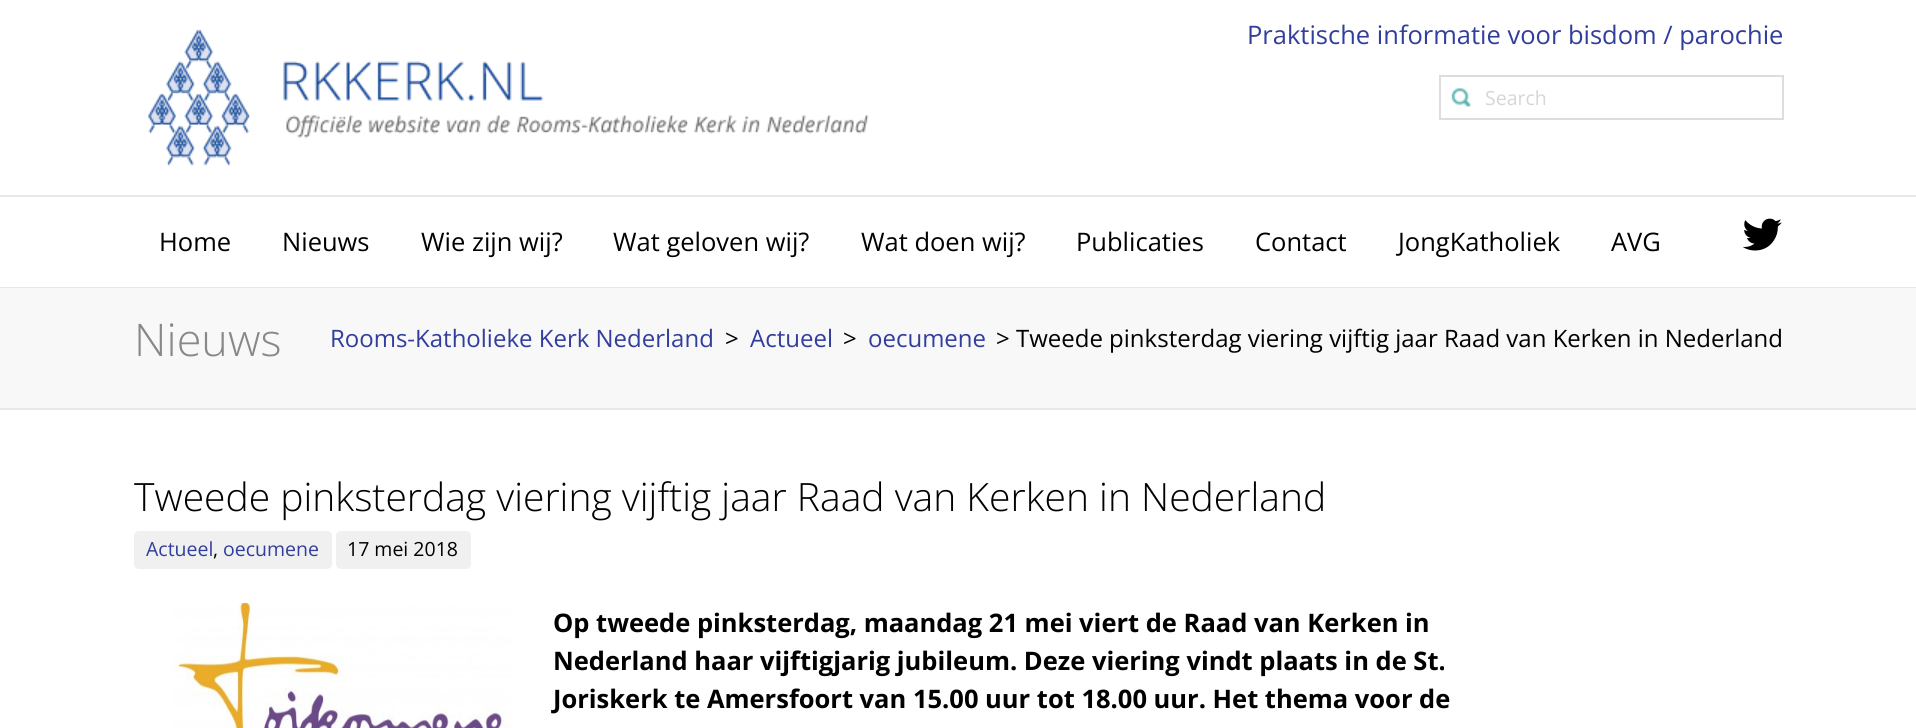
#include <cairo.h>
#include <math.h>
#include <stddef.h>

static cairo_t *ctx;

static void use_color(int r, int g, int b) {
    cairo_set_source_rgb(ctx, r / 255.0, g / 255.0, b / 255.0);
}

static void round_rect(double x, double y, double w, double h, double r) {
    cairo_new_sub_path(ctx);
    cairo_arc(ctx, x + w - r, y + h - r, r, 0, M_PI / 2);
    cairo_arc(ctx, x + r, y + h - r, r, M_PI / 2, M_PI);
    cairo_arc(ctx, x + r, y + r, r, M_PI, 1.5 * M_PI);
    cairo_arc(ctx, x + w - r, y + r, r, 1.5 * M_PI, 2 * M_PI);
    cairo_close_path(ctx);
}

static void picture(const char *path, double x, double y, double w, double h) {
    cairo_surface_t *image = cairo_image_surface_create_from_png(path);
    cairo_save(ctx);
    cairo_set_source_surface(ctx, image, x, y);
    cairo_rectangle(ctx, x, y, w, h);
    cairo_fill(ctx);
    cairo_restore(ctx);
    cairo_surface_destroy(image);
}

int main(void) {
    cairo_surface_t *surface = cairo_image_surface_create(CAIRO_FORMAT_RGB24, 1916, 728);
    ctx = cairo_create(surface);
    cairo_font_options_t *options = cairo_font_options_create();
    cairo_font_options_set_hint_metrics(options, CAIRO_HINT_METRICS_OFF);
    cairo_font_options_set_hint_style(options, CAIRO_HINT_STYLE_NONE);
    cairo_set_font_options(ctx, options);
    cairo_set_miter_limit(ctx, 4);
    use_color(255, 255, 255);
    cairo_paint(ctx);
    use_color(232, 232, 232);
    cairo_rectangle(ctx, 0, 195, 1916, 2);
    cairo_fill(ctx);
    picture("img1.png", 148, 29, 721, 137);
    cairo_select_font_face(ctx, "Open Sans", CAIRO_FONT_SLANT_NORMAL, CAIRO_FONT_WEIGHT_NORMAL);
    cairo_set_font_size(ctx, 25.5);
    use_color(50, 62, 156);
    cairo_move_to(ctx, 1247, 44);
    cairo_show_text(ctx, "Praktische informatie voor bisdom / parochie");
    picture("img2.png", 1451, 88, 20, 19);
    cairo_rectangle(ctx, 1440, 76, 343, 43);
    use_color(221, 221, 221);
    cairo_stroke(ctx);
    cairo_set_font_size(ctx, 19.5);
    use_color(214, 214, 214);
    cairo_move_to(ctx, 1485, 105);
    cairo_show_text(ctx, "Search");
    use_color(232, 232, 232);
    cairo_rectangle(ctx, 0, 287, 1916, 1);
    cairo_fill(ctx);
    cairo_set_font_size(ctx, 25.5);
    use_color(0, 0, 0);
    cairo_move_to(ctx, 159, 251);
    cairo_show_text(ctx, "Home");
    cairo_move_to(ctx, 282, 251);
    cairo_show_text(ctx, "Nieuws");
    cairo_move_to(ctx, 421, 251);
    cairo_show_text(ctx, "Wie zijn wij?");
    cairo_move_to(ctx, 613, 251);
    cairo_show_text(ctx, "Wat geloven wij?");
    cairo_move_to(ctx, 861, 251);
    cairo_show_text(ctx, "Wat doen wij?");
    cairo_move_to(ctx, 1076, 251);
    cairo_show_text(ctx, "Publicaties");
    cairo_move_to(ctx, 1255, 251);
    cairo_show_text(ctx, "Contact");
    cairo_move_to(ctx, 1398, 251);
    cairo_show_text(ctx, "JongKatholiek");
    cairo_move_to(ctx, 1611, 251);
    cairo_show_text(ctx, "AVG");
    picture("img3.png", 1742, 218, 40, 33);
    use_color(248, 248, 248);
    cairo_rectangle(ctx, 0, 288, 1916, 120);
    cairo_fill(ctx);
    use_color(232, 232, 232);
    cairo_rectangle(ctx, 0, 408, 1916, 2);
    cairo_fill(ctx);
    cairo_select_font_face(ctx, "Open Sans Light", CAIRO_FONT_SLANT_NORMAL, CAIRO_FONT_WEIGHT_NORMAL);
    cairo_set_font_size(ctx, 45);
    use_color(136, 136, 136);
    cairo_move_to(ctx, 134, 356);
    cairo_show_text(ctx, "Nieuws");
    cairo_select_font_face(ctx, "Open Sans", CAIRO_FONT_SLANT_NORMAL, CAIRO_FONT_WEIGHT_NORMAL);
    cairo_set_font_size(ctx, 24);
    use_color(50, 62, 156);
    cairo_move_to(ctx, 330, 347);
    cairo_show_text(ctx, "Rooms-Katholieke Kerk Nederland");
    use_color(0, 0, 0);
    cairo_move_to(ctx, 725, 347);
    cairo_show_text(ctx, ">");
    use_color(50, 62, 156);
    cairo_move_to(ctx, 750, 347);
    cairo_show_text(ctx, "Actueel");
    use_color(0, 0, 0);
    cairo_move_to(ctx, 843, 347);
    cairo_show_text(ctx, ">");
    use_color(50, 62, 156);
    cairo_move_to(ctx, 868, 347);
    cairo_show_text(ctx, "oecumene");
    use_color(0, 0, 0);
    cairo_move_to(ctx, 996, 347);
    cairo_show_text(ctx, "> Tweede pinksterdag viering vijftig jaar Raad van Kerken in Nederland");
    cairo_select_font_face(ctx, "Open Sans Light", CAIRO_FONT_SLANT_NORMAL, CAIRO_FONT_WEIGHT_NORMAL);
    cairo_set_font_size(ctx, 39);
    cairo_move_to(ctx, 134, 511);
    cairo_show_text(ctx, "Tweede pinksterdag viering vijftig jaar Raad van Kerken in Nederland");
    use_color(240, 240, 240);
    round_rect(134, 531, 198, 38, 5);
    cairo_fill(ctx);
    cairo_select_font_face(ctx, "Open Sans", CAIRO_FONT_SLANT_NORMAL, CAIRO_FONT_WEIGHT_NORMAL);
    cairo_set_font_size(ctx, 19.5);
    use_color(50, 62, 156);
    cairo_move_to(ctx, 146, 556);
    cairo_show_text(ctx, "Actueel");
    use_color(0, 0, 0);
    cairo_move_to(ctx, 213, 556);
    cairo_show_text(ctx, ",");
    use_color(50, 62, 156);
    cairo_move_to(ctx, 223, 556);
    cairo_show_text(ctx, "oecumene");
    use_color(240, 240, 240);
    round_rect(336, 531, 135, 38, 5);
    cairo_fill(ctx);
    use_color(0, 0, 0);
    cairo_move_to(ctx, 347, 556);
    cairo_show_text(ctx, "17 mei 2018");
    picture("img4.png", 172, 603, 340, 125);
    cairo_select_font_face(ctx, "Open Sans", CAIRO_FONT_SLANT_NORMAL, CAIRO_FONT_WEIGHT_BOLD);
    cairo_set_font_size(ctx, 25.5);
    cairo_move_to(ctx, 553, 632);
    cairo_show_text(ctx, "Op tweede pinksterdag, maandag 21 mei viert de Raad van Kerken in");
    cairo_move_to(ctx, 553, 670);
    cairo_show_text(ctx, "Nederland haar vijftigjarig jubileum. Deze viering vindt plaats in de St.");
    cairo_move_to(ctx, 553, 708);
    cairo_show_text(ctx, "Joriskerk te Amersfoort van 15.00 uur tot 18.00 uur. Het thema voor de");
    cairo_surface_write_to_png(surface, "result.png");
    cairo_font_options_destroy(options);
    cairo_destroy(ctx);
    cairo_surface_destroy(surface);
    return 0;
}
